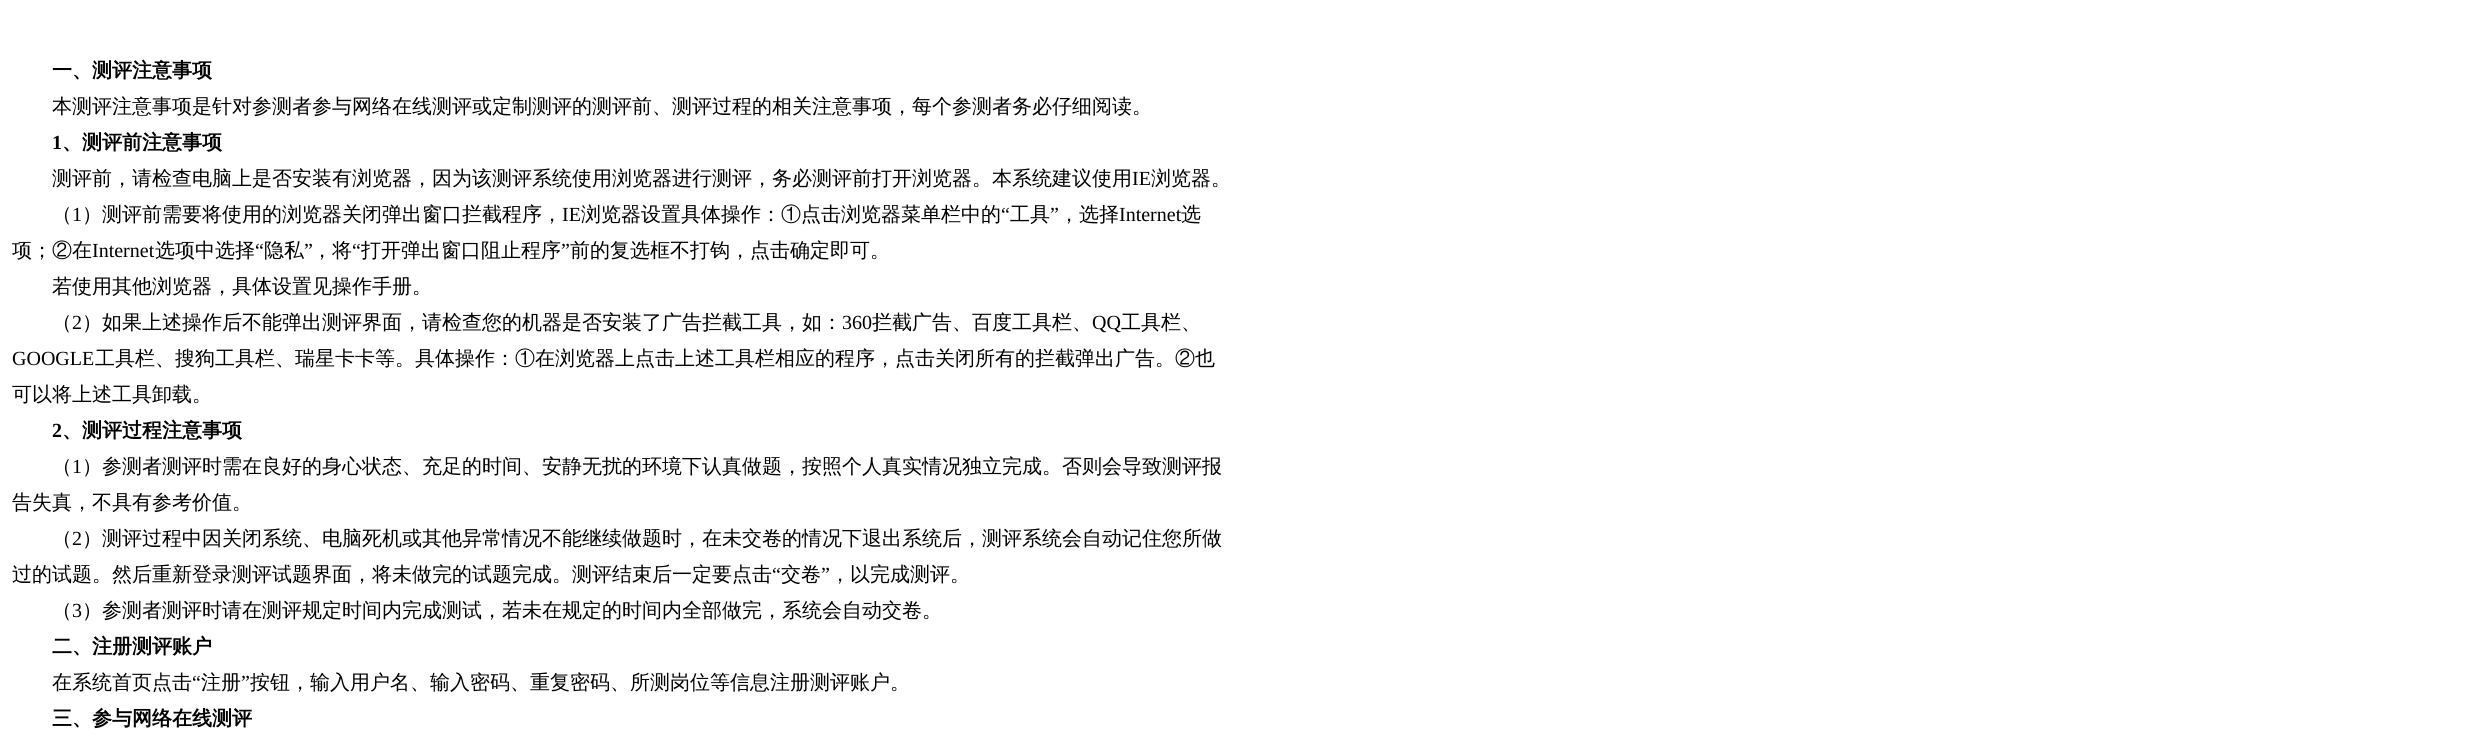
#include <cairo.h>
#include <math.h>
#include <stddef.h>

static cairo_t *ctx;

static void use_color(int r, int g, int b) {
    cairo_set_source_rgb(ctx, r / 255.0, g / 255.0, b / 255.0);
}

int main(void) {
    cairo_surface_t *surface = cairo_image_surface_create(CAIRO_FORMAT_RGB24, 2482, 754);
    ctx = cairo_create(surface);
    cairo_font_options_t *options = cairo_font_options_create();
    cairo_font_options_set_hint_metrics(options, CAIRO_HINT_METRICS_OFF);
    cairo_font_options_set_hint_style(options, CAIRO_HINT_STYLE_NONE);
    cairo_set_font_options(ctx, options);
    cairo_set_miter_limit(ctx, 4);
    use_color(255, 255, 255);
    cairo_paint(ctx);
    cairo_select_font_face(ctx, "WenQuanYi Zen Hei", CAIRO_FONT_SLANT_NORMAL, CAIRO_FONT_WEIGHT_BOLD);
    cairo_set_font_size(ctx, 20);
    use_color(0, 0, 0);
    cairo_move_to(ctx, 52, 77);
    cairo_show_text(ctx, "一、测评注意事项");
    cairo_select_font_face(ctx, "WenQuanYi Zen Hei Medium", CAIRO_FONT_SLANT_NORMAL, CAIRO_FONT_WEIGHT_NORMAL);
    cairo_move_to(ctx, 52, 113);
    cairo_show_text(ctx, "本测评注意事项是针对参测者参与网络在线测评或定制测评的测评前、测评过程的相关注意事项，每个参测者务必仔细阅读。");
    cairo_select_font_face(ctx, "Liberation Serif", CAIRO_FONT_SLANT_NORMAL, CAIRO_FONT_WEIGHT_BOLD);
    cairo_move_to(ctx, 52, 149);
    cairo_show_text(ctx, "1");
    cairo_select_font_face(ctx, "WenQuanYi Zen Hei", CAIRO_FONT_SLANT_NORMAL, CAIRO_FONT_WEIGHT_BOLD);
    cairo_move_to(ctx, 62, 149);
    cairo_show_text(ctx, "、测评前注意事项");
    cairo_select_font_face(ctx, "WenQuanYi Zen Hei Medium", CAIRO_FONT_SLANT_NORMAL, CAIRO_FONT_WEIGHT_NORMAL);
    cairo_move_to(ctx, 52, 185);
    cairo_show_text(ctx, "测评前，请检查电脑上是否安装有浏览器，因为该测评系统使用浏览器进行测评，务必测评前打开浏览器。本系统建议使用");
    cairo_select_font_face(ctx, "Liberation Serif", CAIRO_FONT_SLANT_NORMAL, CAIRO_FONT_WEIGHT_NORMAL);
    cairo_move_to(ctx, 1132, 185);
    cairo_show_text(ctx, "IE");
    cairo_select_font_face(ctx, "WenQuanYi Zen Hei Medium", CAIRO_FONT_SLANT_NORMAL, CAIRO_FONT_WEIGHT_NORMAL);
    cairo_move_to(ctx, 1151, 185);
    cairo_show_text(ctx, "浏览器。");
    cairo_move_to(ctx, 52, 221);
    cairo_show_text(ctx, "（");
    cairo_select_font_face(ctx, "Liberation Serif", CAIRO_FONT_SLANT_NORMAL, CAIRO_FONT_WEIGHT_NORMAL);
    cairo_move_to(ctx, 72, 221);
    cairo_show_text(ctx, "1");
    cairo_select_font_face(ctx, "WenQuanYi Zen Hei Medium", CAIRO_FONT_SLANT_NORMAL, CAIRO_FONT_WEIGHT_NORMAL);
    cairo_move_to(ctx, 82, 221);
    cairo_show_text(ctx, "）测评前需要将使用的浏览器关闭弹出窗口拦截程序，");
    cairo_select_font_face(ctx, "Liberation Serif", CAIRO_FONT_SLANT_NORMAL, CAIRO_FONT_WEIGHT_NORMAL);
    cairo_move_to(ctx, 562, 221);
    cairo_show_text(ctx, "IE");
    cairo_select_font_face(ctx, "WenQuanYi Zen Hei Medium", CAIRO_FONT_SLANT_NORMAL, CAIRO_FONT_WEIGHT_NORMAL);
    cairo_move_to(ctx, 581, 221);
    cairo_show_text(ctx, "浏览器设置具体操作：①点击浏览器菜单栏中的");
    cairo_select_font_face(ctx, "Liberation Serif", CAIRO_FONT_SLANT_NORMAL, CAIRO_FONT_WEIGHT_NORMAL);
    cairo_move_to(ctx, 1001, 221);
    cairo_show_text(ctx, "“");
    cairo_select_font_face(ctx, "WenQuanYi Zen Hei Medium", CAIRO_FONT_SLANT_NORMAL, CAIRO_FONT_WEIGHT_NORMAL);
    cairo_move_to(ctx, 1010, 221);
    cairo_show_text(ctx, "工具");
    cairo_select_font_face(ctx, "Liberation Serif", CAIRO_FONT_SLANT_NORMAL, CAIRO_FONT_WEIGHT_NORMAL);
    cairo_move_to(ctx, 1050, 221);
    cairo_show_text(ctx, "”");
    cairo_select_font_face(ctx, "WenQuanYi Zen Hei Medium", CAIRO_FONT_SLANT_NORMAL, CAIRO_FONT_WEIGHT_NORMAL);
    cairo_move_to(ctx, 1059, 221);
    cairo_show_text(ctx, "，选择");
    cairo_select_font_face(ctx, "Liberation Serif", CAIRO_FONT_SLANT_NORMAL, CAIRO_FONT_WEIGHT_NORMAL);
    cairo_move_to(ctx, 1119, 221);
    cairo_show_text(ctx, "Internet");
    cairo_select_font_face(ctx, "WenQuanYi Zen Hei Medium", CAIRO_FONT_SLANT_NORMAL, CAIRO_FONT_WEIGHT_NORMAL);
    cairo_move_to(ctx, 1181, 221);
    cairo_show_text(ctx, "选");
    cairo_move_to(ctx, 12, 257);
    cairo_show_text(ctx, "项；②在");
    cairo_select_font_face(ctx, "Liberation Serif", CAIRO_FONT_SLANT_NORMAL, CAIRO_FONT_WEIGHT_NORMAL);
    cairo_move_to(ctx, 92, 257);
    cairo_show_text(ctx, "Internet");
    cairo_select_font_face(ctx, "WenQuanYi Zen Hei Medium", CAIRO_FONT_SLANT_NORMAL, CAIRO_FONT_WEIGHT_NORMAL);
    cairo_move_to(ctx, 155, 257);
    cairo_show_text(ctx, "选项中选择");
    cairo_select_font_face(ctx, "Liberation Serif", CAIRO_FONT_SLANT_NORMAL, CAIRO_FONT_WEIGHT_NORMAL);
    cairo_move_to(ctx, 255, 257);
    cairo_show_text(ctx, "“");
    cairo_select_font_face(ctx, "WenQuanYi Zen Hei Medium", CAIRO_FONT_SLANT_NORMAL, CAIRO_FONT_WEIGHT_NORMAL);
    cairo_move_to(ctx, 264, 257);
    cairo_show_text(ctx, "隐私");
    cairo_select_font_face(ctx, "Liberation Serif", CAIRO_FONT_SLANT_NORMAL, CAIRO_FONT_WEIGHT_NORMAL);
    cairo_move_to(ctx, 304, 257);
    cairo_show_text(ctx, "”");
    cairo_select_font_face(ctx, "WenQuanYi Zen Hei Medium", CAIRO_FONT_SLANT_NORMAL, CAIRO_FONT_WEIGHT_NORMAL);
    cairo_move_to(ctx, 312, 257);
    cairo_show_text(ctx, "，将");
    cairo_select_font_face(ctx, "Liberation Serif", CAIRO_FONT_SLANT_NORMAL, CAIRO_FONT_WEIGHT_NORMAL);
    cairo_move_to(ctx, 352, 257);
    cairo_show_text(ctx, "“");
    cairo_select_font_face(ctx, "WenQuanYi Zen Hei Medium", CAIRO_FONT_SLANT_NORMAL, CAIRO_FONT_WEIGHT_NORMAL);
    cairo_move_to(ctx, 361, 257);
    cairo_show_text(ctx, "打开弹出窗口阻止程序");
    cairo_select_font_face(ctx, "Liberation Serif", CAIRO_FONT_SLANT_NORMAL, CAIRO_FONT_WEIGHT_NORMAL);
    cairo_move_to(ctx, 561, 257);
    cairo_show_text(ctx, "”");
    cairo_select_font_face(ctx, "WenQuanYi Zen Hei Medium", CAIRO_FONT_SLANT_NORMAL, CAIRO_FONT_WEIGHT_NORMAL);
    cairo_move_to(ctx, 570, 257);
    cairo_show_text(ctx, "前的复选框不打钩，点击确定即可。");
    cairo_move_to(ctx, 52, 293);
    cairo_show_text(ctx, "若使用其他浏览器，具体设置见操作手册。");
    cairo_move_to(ctx, 52, 329);
    cairo_show_text(ctx, "（");
    cairo_select_font_face(ctx, "Liberation Serif", CAIRO_FONT_SLANT_NORMAL, CAIRO_FONT_WEIGHT_NORMAL);
    cairo_move_to(ctx, 72, 329);
    cairo_show_text(ctx, "2");
    cairo_select_font_face(ctx, "WenQuanYi Zen Hei Medium", CAIRO_FONT_SLANT_NORMAL, CAIRO_FONT_WEIGHT_NORMAL);
    cairo_move_to(ctx, 82, 329);
    cairo_show_text(ctx, "）如果上述操作后不能弹出测评界面，请检查您的机器是否安装了广告拦截工具，如：");
    cairo_select_font_face(ctx, "Liberation Serif", CAIRO_FONT_SLANT_NORMAL, CAIRO_FONT_WEIGHT_NORMAL);
    cairo_move_to(ctx, 842, 329);
    cairo_show_text(ctx, "360");
    cairo_select_font_face(ctx, "WenQuanYi Zen Hei Medium", CAIRO_FONT_SLANT_NORMAL, CAIRO_FONT_WEIGHT_NORMAL);
    cairo_move_to(ctx, 872, 329);
    cairo_show_text(ctx, "拦截广告、百度工具栏、");
    cairo_select_font_face(ctx, "Liberation Serif", CAIRO_FONT_SLANT_NORMAL, CAIRO_FONT_WEIGHT_NORMAL);
    cairo_move_to(ctx, 1092, 329);
    cairo_show_text(ctx, "QQ");
    cairo_select_font_face(ctx, "WenQuanYi Zen Hei Medium", CAIRO_FONT_SLANT_NORMAL, CAIRO_FONT_WEIGHT_NORMAL);
    cairo_move_to(ctx, 1121, 329);
    cairo_show_text(ctx, "工具栏、");
    cairo_select_font_face(ctx, "Liberation Serif", CAIRO_FONT_SLANT_NORMAL, CAIRO_FONT_WEIGHT_NORMAL);
    cairo_move_to(ctx, 12, 365);
    cairo_show_text(ctx, "GOOGLE");
    cairo_select_font_face(ctx, "WenQuanYi Zen Hei Medium", CAIRO_FONT_SLANT_NORMAL, CAIRO_FONT_WEIGHT_NORMAL);
    cairo_move_to(ctx, 95, 365);
    cairo_show_text(ctx, "工具栏、搜狗工具栏、瑞星卡卡等。具体操作：①在浏览器上点击上述工具栏相应的程序，点击关闭所有的拦截弹出广告。②也");
    cairo_move_to(ctx, 12, 401);
    cairo_show_text(ctx, "可以将上述工具卸载。");
    cairo_select_font_face(ctx, "Liberation Serif", CAIRO_FONT_SLANT_NORMAL, CAIRO_FONT_WEIGHT_BOLD);
    cairo_move_to(ctx, 52, 437);
    cairo_show_text(ctx, "2");
    cairo_select_font_face(ctx, "WenQuanYi Zen Hei", CAIRO_FONT_SLANT_NORMAL, CAIRO_FONT_WEIGHT_BOLD);
    cairo_move_to(ctx, 62, 437);
    cairo_show_text(ctx, "、测评过程注意事项");
    cairo_select_font_face(ctx, "WenQuanYi Zen Hei Medium", CAIRO_FONT_SLANT_NORMAL, CAIRO_FONT_WEIGHT_NORMAL);
    cairo_move_to(ctx, 52, 473);
    cairo_show_text(ctx, "（");
    cairo_select_font_face(ctx, "Liberation Serif", CAIRO_FONT_SLANT_NORMAL, CAIRO_FONT_WEIGHT_NORMAL);
    cairo_move_to(ctx, 72, 473);
    cairo_show_text(ctx, "1");
    cairo_select_font_face(ctx, "WenQuanYi Zen Hei Medium", CAIRO_FONT_SLANT_NORMAL, CAIRO_FONT_WEIGHT_NORMAL);
    cairo_move_to(ctx, 82, 473);
    cairo_show_text(ctx, "）参测者测评时需在良好的身心状态、充足的时间、安静无扰的环境下认真做题，按照个人真实情况独立完成。否则会导致测评报");
    cairo_move_to(ctx, 12, 509);
    cairo_show_text(ctx, "告失真，不具有参考价值。");
    cairo_move_to(ctx, 52, 545);
    cairo_show_text(ctx, "（");
    cairo_select_font_face(ctx, "Liberation Serif", CAIRO_FONT_SLANT_NORMAL, CAIRO_FONT_WEIGHT_NORMAL);
    cairo_move_to(ctx, 72, 545);
    cairo_show_text(ctx, "2");
    cairo_select_font_face(ctx, "WenQuanYi Zen Hei Medium", CAIRO_FONT_SLANT_NORMAL, CAIRO_FONT_WEIGHT_NORMAL);
    cairo_move_to(ctx, 82, 545);
    cairo_show_text(ctx, "）测评过程中因关闭系统、电脑死机或其他异常情况不能继续做题时，在未交卷的情况下退出系统后，测评系统会自动记住您所做");
    cairo_move_to(ctx, 12, 581);
    cairo_show_text(ctx, "过的试题。然后重新登录测评试题界面，将未做完的试题完成。测评结束后一定要点击");
    cairo_select_font_face(ctx, "Liberation Serif", CAIRO_FONT_SLANT_NORMAL, CAIRO_FONT_WEIGHT_NORMAL);
    cairo_move_to(ctx, 772, 581);
    cairo_show_text(ctx, "“");
    cairo_select_font_face(ctx, "WenQuanYi Zen Hei Medium", CAIRO_FONT_SLANT_NORMAL, CAIRO_FONT_WEIGHT_NORMAL);
    cairo_move_to(ctx, 781, 581);
    cairo_show_text(ctx, "交卷");
    cairo_select_font_face(ctx, "Liberation Serif", CAIRO_FONT_SLANT_NORMAL, CAIRO_FONT_WEIGHT_NORMAL);
    cairo_move_to(ctx, 821, 581);
    cairo_show_text(ctx, "”");
    cairo_select_font_face(ctx, "WenQuanYi Zen Hei Medium", CAIRO_FONT_SLANT_NORMAL, CAIRO_FONT_WEIGHT_NORMAL);
    cairo_move_to(ctx, 830, 581);
    cairo_show_text(ctx, "，以完成测评。");
    cairo_move_to(ctx, 52, 617);
    cairo_show_text(ctx, "（");
    cairo_select_font_face(ctx, "Liberation Serif", CAIRO_FONT_SLANT_NORMAL, CAIRO_FONT_WEIGHT_NORMAL);
    cairo_move_to(ctx, 72, 617);
    cairo_show_text(ctx, "3");
    cairo_select_font_face(ctx, "WenQuanYi Zen Hei Medium", CAIRO_FONT_SLANT_NORMAL, CAIRO_FONT_WEIGHT_NORMAL);
    cairo_move_to(ctx, 82, 617);
    cairo_show_text(ctx, "）参测者测评时请在测评规定时间内完成测试，若未在规定的时间内全部做完，系统会自动交卷。");
    cairo_select_font_face(ctx, "WenQuanYi Zen Hei", CAIRO_FONT_SLANT_NORMAL, CAIRO_FONT_WEIGHT_BOLD);
    cairo_move_to(ctx, 52, 653);
    cairo_show_text(ctx, "二、注册测评账户");
    cairo_select_font_face(ctx, "WenQuanYi Zen Hei Medium", CAIRO_FONT_SLANT_NORMAL, CAIRO_FONT_WEIGHT_NORMAL);
    cairo_move_to(ctx, 52, 689);
    cairo_show_text(ctx, "在系统首页点击");
    cairo_select_font_face(ctx, "Liberation Serif", CAIRO_FONT_SLANT_NORMAL, CAIRO_FONT_WEIGHT_NORMAL);
    cairo_move_to(ctx, 192, 689);
    cairo_show_text(ctx, "“");
    cairo_select_font_face(ctx, "WenQuanYi Zen Hei Medium", CAIRO_FONT_SLANT_NORMAL, CAIRO_FONT_WEIGHT_NORMAL);
    cairo_move_to(ctx, 201, 689);
    cairo_show_text(ctx, "注册");
    cairo_select_font_face(ctx, "Liberation Serif", CAIRO_FONT_SLANT_NORMAL, CAIRO_FONT_WEIGHT_NORMAL);
    cairo_move_to(ctx, 241, 689);
    cairo_show_text(ctx, "”");
    cairo_select_font_face(ctx, "WenQuanYi Zen Hei Medium", CAIRO_FONT_SLANT_NORMAL, CAIRO_FONT_WEIGHT_NORMAL);
    cairo_move_to(ctx, 250, 689);
    cairo_show_text(ctx, "按钮，输入用户名、输入密码、重复密码、所测岗位等信息注册测评账户。");
    cairo_select_font_face(ctx, "WenQuanYi Zen Hei", CAIRO_FONT_SLANT_NORMAL, CAIRO_FONT_WEIGHT_BOLD);
    cairo_move_to(ctx, 52, 725);
    cairo_show_text(ctx, "三、参与网络在线测评");
    cairo_surface_write_to_png(surface, "result.png");
    cairo_font_options_destroy(options);
    cairo_destroy(ctx);
    cairo_surface_destroy(surface);
    return 0;
}
